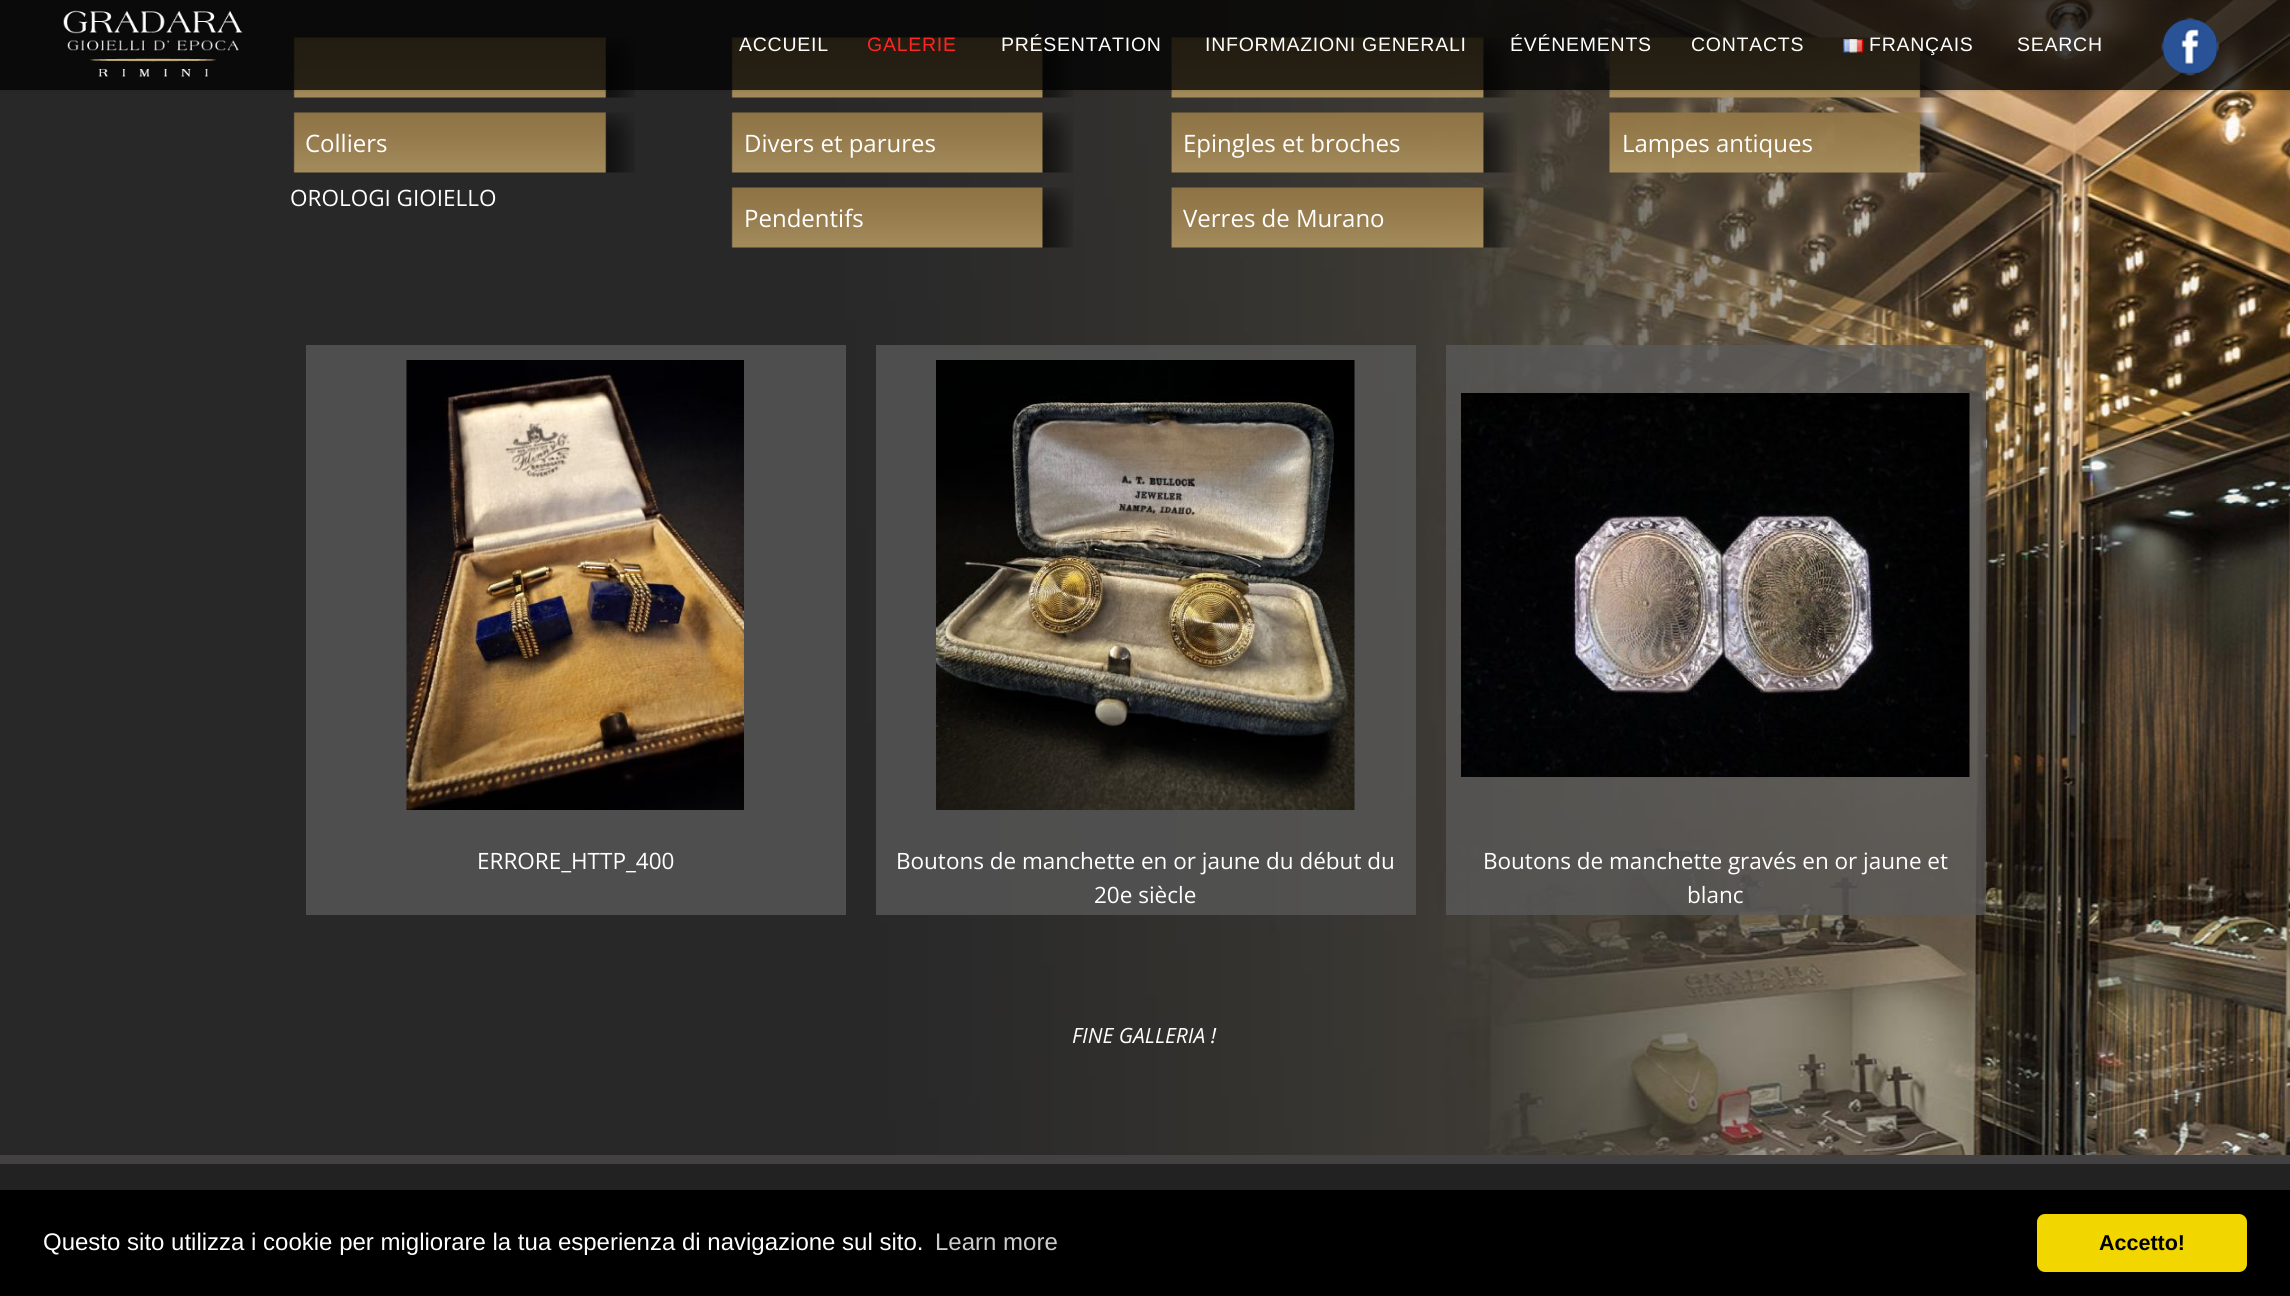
#include <cairo.h>
#include <math.h>
#include <stddef.h>

static cairo_t *ctx;

static void use_color(int r, int g, int b) {
    cairo_set_source_rgb(ctx, r / 255.0, g / 255.0, b / 255.0);
}

static void spaced_text(double x, double y, const char *s, double letter, double word) {
    cairo_move_to(ctx, x, y);
    while (*s) {
        char ch[5] = {0};
        int n = 0;
        do ch[n++] = *s++; while ((*s & 0xC0) == 0x80);
        cairo_show_text(ctx, ch);
        cairo_rel_move_to(ctx, letter + word * (*ch == ' '), 0);
    }
}

static void round_rect(double x, double y, double w, double h, double r) {
    cairo_new_sub_path(ctx);
    cairo_arc(ctx, x + w - r, y + h - r, r, 0, M_PI / 2);
    cairo_arc(ctx, x + r, y + h - r, r, M_PI / 2, M_PI);
    cairo_arc(ctx, x + r, y + r, r, M_PI, 1.5 * M_PI);
    cairo_arc(ctx, x + w - r, y + r, r, 1.5 * M_PI, 2 * M_PI);
    cairo_close_path(ctx);
}

static void picture(const char *path, double x, double y, double w, double h) {
    cairo_surface_t *image = cairo_image_surface_create_from_png(path);
    cairo_save(ctx);
    cairo_set_source_surface(ctx, image, x, y);
    cairo_rectangle(ctx, x, y, w, h);
    cairo_fill(ctx);
    cairo_restore(ctx);
    cairo_surface_destroy(image);
}

int main(void) {
    cairo_surface_t *surface = cairo_image_surface_create(CAIRO_FORMAT_RGB24, 2290, 1296);
    ctx = cairo_create(surface);
    cairo_font_options_t *options = cairo_font_options_create();
    cairo_font_options_set_hint_metrics(options, CAIRO_HINT_METRICS_OFF);
    cairo_font_options_set_hint_style(options, CAIRO_HINT_STYLE_NONE);
    cairo_set_font_options(ctx, options);
    cairo_set_miter_limit(ctx, 4);
    use_color(67, 65, 66);
    cairo_paint(ctx);
    picture("img4.png", 0, 0, 2290, 1155);
    picture("img5.png", 293, 37, 342, 61);
    picture("img6.png", 731, 37, 342, 61);
    picture("img7.png", 1171, 37, 345, 61);
    picture("img8.png", 1609, 37, 348, 61);
    cairo_set_source_rgba(ctx, 0, 0, 0, 0.5);
    cairo_rectangle(ctx, 0, 0, 2290, 90);
    cairo_fill(ctx);
    cairo_set_source_rgba(ctx, 0, 0, 0, 0.05);
    cairo_new_path(ctx);
    cairo_move_to(ctx, 0, 90);
    cairo_line_to(ctx, 0, 92);
    cairo_line_to(ctx, 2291, 92);
    cairo_line_to(ctx, 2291, 2);
    cairo_line_to(ctx, 2290, 2);
    cairo_line_to(ctx, 2290, 90);
    cairo_close_path(ctx);
    cairo_fill(ctx);
    cairo_set_source_rgba(ctx, 0, 0, 0, 0.5);
    cairo_rectangle(ctx, 0, 0, 2290, 90);
    cairo_fill(ctx);
    picture("img1.png", 63, 10, 180, 67);
    cairo_select_font_face(ctx, "Liberation Sans", CAIRO_FONT_SLANT_NORMAL, CAIRO_FONT_WEIGHT_NORMAL);
    cairo_set_font_size(ctx, 19.5);
    use_color(255, 255, 255);
    spaced_text(739, 51, "ACCUEIL", 0.75, 0);
    use_color(255, 36, 36);
    spaced_text(867, 51, "GALERIE", 0.75, 0);
    use_color(255, 255, 255);
    spaced_text(1001, 51, "PRÉSENTATION", 0.75, 0);
    spaced_text(1205, 51, "INFORMAZIONI GENERALI", 0.75, 0);
    spaced_text(1510, 51, "ÉVÉNEMENTS", 0.75, 0);
    spaced_text(1691, 51, "CONTACTS", 0.75, 0);
    picture("img2.png", 1843, 39, 20, 14);
    spaced_text(1869, 51, "FRANÇAIS", 0.75, 0);
    spaced_text(2017, 51, "SEARCH", 0.75, 0);
    picture("img3.png", 2161, 17, 58, 59);
    picture("img5.png", 293, 112, 342, 61);
    cairo_select_font_face(ctx, "Open Sans", CAIRO_FONT_SLANT_NORMAL, CAIRO_FONT_WEIGHT_NORMAL);
    cairo_set_font_size(ctx, 24);
    cairo_move_to(ctx, 305, 152);
    cairo_show_text(ctx, "Colliers");
    picture("img9.png", 731, 112, 342, 61);
    cairo_move_to(ctx, 744, 152);
    cairo_show_text(ctx, "Divers et parures");
    picture("img10.png", 1171, 112, 346, 61);
    cairo_move_to(ctx, 1183, 152);
    cairo_show_text(ctx, "Epingles et broches");
    picture("img11.png", 1609, 112, 348, 61);
    cairo_move_to(ctx, 1622, 152);
    cairo_show_text(ctx, "Lampes antiques");
    cairo_set_font_size(ctx, 22.5);
    cairo_move_to(ctx, 290, 206);
    cairo_show_text(ctx, "OROLOGI GIOIELLO");
    picture("img12.png", 731, 187, 342, 61);
    cairo_set_font_size(ctx, 24);
    cairo_move_to(ctx, 744, 227);
    cairo_show_text(ctx, "Pendentifs");
    picture("img13.png", 1171, 187, 346, 61);
    cairo_move_to(ctx, 1183, 227);
    cairo_show_text(ctx, "Verres de Murano");
    use_color(78, 78, 78);
    cairo_rectangle(ctx, 306, 345, 540, 570);
    cairo_fill(ctx);
    picture("img14.png", 406, 360, 338, 450);
    cairo_set_font_size(ctx, 22.5);
    use_color(255, 255, 255);
    cairo_move_to(ctx, 477, 869);
    cairo_show_text(ctx, "ERRORE_HTTP_400");
    cairo_set_source_rgba(ctx, 0.353, 0.353, 0.353, 0.76);
    cairo_rectangle(ctx, 876, 345, 540, 570);
    cairo_fill(ctx);
    picture("img15.png", 936, 360, 419, 450);
    use_color(255, 255, 255);
    cairo_move_to(ctx, 896, 869);
    cairo_show_text(ctx, "Boutons de manchette en or jaune du début du");
    cairo_move_to(ctx, 1094, 903);
    cairo_show_text(ctx, "20e siècle");
    cairo_set_source_rgba(ctx, 0.353, 0.353, 0.353, 0.76);
    cairo_rectangle(ctx, 1446, 345, 540, 570);
    cairo_fill(ctx);
    picture("img16.png", 1461, 393, 509, 384);
    use_color(255, 255, 255);
    cairo_move_to(ctx, 1483, 869);
    cairo_show_text(ctx, "Boutons de manchette gravés en or jaune et");
    cairo_move_to(ctx, 1687, 903);
    cairo_show_text(ctx, "blanc");
    cairo_select_font_face(ctx, "Open Sans", CAIRO_FONT_SLANT_ITALIC, CAIRO_FONT_WEIGHT_NORMAL);
    cairo_set_font_size(ctx, 21);
    cairo_move_to(ctx, 1072, 1043);
    cairo_show_text(ctx, "FINE GALLERIA !");
    use_color(34, 34, 34);
    cairo_rectangle(ctx, 0, 1164, 2290, 26);
    cairo_fill(ctx);
    use_color(0, 0, 0);
    cairo_rectangle(ctx, 0, 1190, 2290, 106);
    cairo_fill(ctx);
    cairo_select_font_face(ctx, "Liberation Sans", CAIRO_FONT_SLANT_NORMAL, CAIRO_FONT_WEIGHT_NORMAL);
    cairo_set_font_size(ctx, 24);
    use_color(255, 255, 255);
    cairo_move_to(ctx, 43, 1250);
    cairo_show_text(ctx, "Questo sito utilizza i cookie per migliorare la tua esperienza di navigazione sul sito.");
    use_color(204, 204, 204);
    cairo_move_to(ctx, 935, 1250);
    cairo_show_text(ctx, "Learn more");
    use_color(241, 214, 0);
    round_rect(2037, 1214, 210, 58, 8);
    cairo_fill(ctx);
    cairo_select_font_face(ctx, "Liberation Sans", CAIRO_FONT_SLANT_NORMAL, CAIRO_FONT_WEIGHT_BOLD);
    cairo_set_font_size(ctx, 21.5);
    use_color(0, 0, 0);
    cairo_move_to(ctx, 2099, 1250);
    cairo_show_text(ctx, "Accetto!");
    cairo_surface_write_to_png(surface, "result.png");
    cairo_font_options_destroy(options);
    cairo_destroy(ctx);
    cairo_surface_destroy(surface);
    return 0;
}
